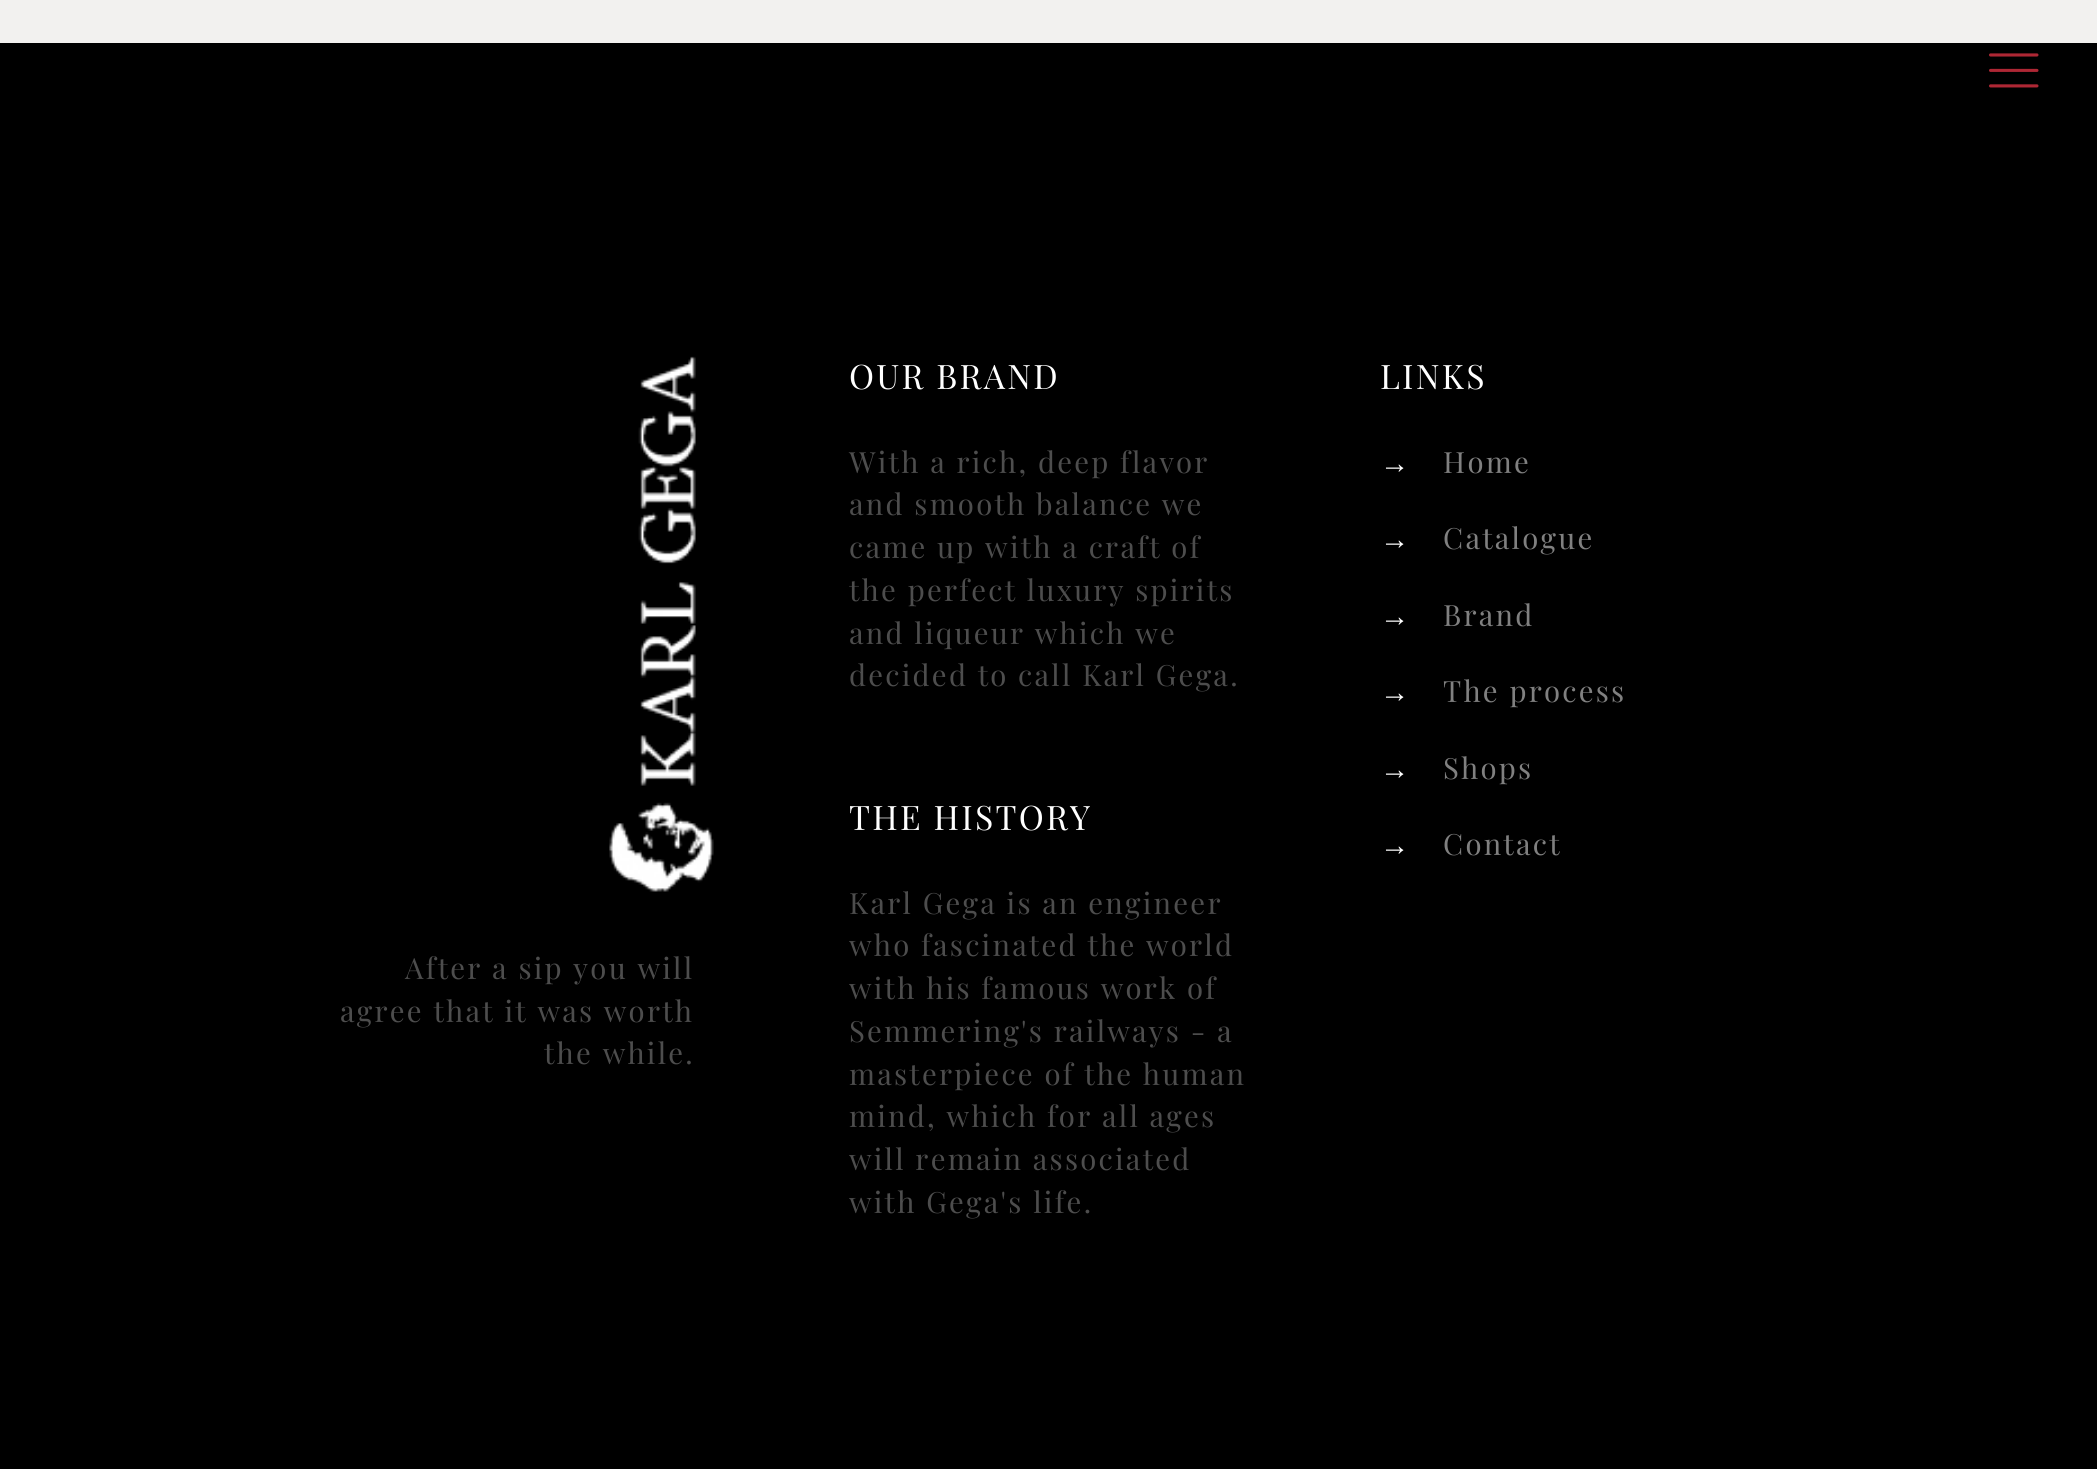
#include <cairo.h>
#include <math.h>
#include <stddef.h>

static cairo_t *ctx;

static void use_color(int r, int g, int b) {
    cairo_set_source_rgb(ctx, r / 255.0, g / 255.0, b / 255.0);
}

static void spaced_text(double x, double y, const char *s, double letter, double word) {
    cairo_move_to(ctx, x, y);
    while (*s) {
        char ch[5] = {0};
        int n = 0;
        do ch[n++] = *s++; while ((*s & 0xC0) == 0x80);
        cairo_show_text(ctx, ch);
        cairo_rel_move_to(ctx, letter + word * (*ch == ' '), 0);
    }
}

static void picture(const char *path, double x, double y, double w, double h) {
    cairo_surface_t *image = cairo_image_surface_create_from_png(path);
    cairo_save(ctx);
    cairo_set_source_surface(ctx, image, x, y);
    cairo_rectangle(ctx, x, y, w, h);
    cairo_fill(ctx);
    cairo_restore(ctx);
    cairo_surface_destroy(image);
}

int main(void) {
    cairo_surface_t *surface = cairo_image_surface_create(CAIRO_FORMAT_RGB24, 2097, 1469);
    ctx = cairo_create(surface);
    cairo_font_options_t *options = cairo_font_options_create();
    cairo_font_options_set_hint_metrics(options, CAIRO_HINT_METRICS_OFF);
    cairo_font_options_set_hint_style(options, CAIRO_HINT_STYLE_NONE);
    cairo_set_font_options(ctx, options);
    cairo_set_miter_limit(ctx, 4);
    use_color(242, 241, 239);
    cairo_paint(ctx);
    use_color(0, 0, 0);
    cairo_rectangle(ctx, 0, 43, 2097, 1426);
    cairo_fill(ctx);
    picture("img1.png", 1989, 53, 50, 35);
    cairo_select_font_face(ctx, "Playfair Display", CAIRO_FONT_SLANT_NORMAL, CAIRO_FONT_WEIGHT_NORMAL);
    cairo_set_font_size(ctx, 33.75);
    use_color(255, 255, 255);
    spaced_text(849, 389, "OUR BRAND", 2.25, 0);
    cairo_set_font_size(ctx, 29.25);
    use_color(77, 77, 77);
    spaced_text(849, 473, "With a rich, deep flavor", 2.25, 0);
    spaced_text(849, 515, "and smooth balance we", 2.25, 0);
    spaced_text(849, 558, "came up with a craft of", 2.25, 0);
    spaced_text(849, 601, "the perfect luxury spirits", 2.25, 0);
    spaced_text(849, 644, "and liqueur which we", 2.25, 0);
    spaced_text(849, 686, "decided to call Karl Gega.", 2.25, 0);
    cairo_set_font_size(ctx, 33.75);
    use_color(255, 255, 255);
    spaced_text(849, 830, "THE HISTORY", 2.25, 0);
    cairo_set_font_size(ctx, 29.25);
    use_color(77, 77, 77);
    spaced_text(849, 914, "Karl Gega is an engineer", 2.25, 0);
    spaced_text(849, 956, "who fascinated the world", 2.25, 0);
    spaced_text(849, 999, "with his famous work of", 2.25, 0);
    spaced_text(849, 1042, "Semmering's railways - a", 2.25, 0);
    spaced_text(849, 1085, "masterpiece of the human", 2.25, 0);
    spaced_text(849, 1127, "mind, which for all ages", 2.25, 0);
    spaced_text(849, 1170, "will remain associated", 2.25, 0);
    spaced_text(849, 1213, "with Gega's life.", 2.25, 0);
    cairo_set_font_size(ctx, 33.75);
    use_color(255, 255, 255);
    spaced_text(1380, 389, "LINKS", 2.25, 0);
    cairo_select_font_face(ctx, "Liberation Sans", CAIRO_FONT_SLANT_NORMAL, CAIRO_FONT_WEIGHT_NORMAL);
    cairo_set_font_size(ctx, 29.25);
    spaced_text(1380, 473, "→", 2.25, 0);
    cairo_select_font_face(ctx, "Playfair Display", CAIRO_FONT_SLANT_NORMAL, CAIRO_FONT_WEIGHT_NORMAL);
    use_color(128, 128, 128);
    spaced_text(1443, 473, "Home", 2.25, 0);
    cairo_select_font_face(ctx, "Liberation Sans", CAIRO_FONT_SLANT_NORMAL, CAIRO_FONT_WEIGHT_NORMAL);
    use_color(255, 255, 255);
    spaced_text(1380, 549, "→", 2.25, 0);
    cairo_select_font_face(ctx, "Playfair Display", CAIRO_FONT_SLANT_NORMAL, CAIRO_FONT_WEIGHT_NORMAL);
    use_color(128, 128, 128);
    spaced_text(1443, 549, "Catalogue", 2.25, 0);
    cairo_select_font_face(ctx, "Liberation Sans", CAIRO_FONT_SLANT_NORMAL, CAIRO_FONT_WEIGHT_NORMAL);
    use_color(255, 255, 255);
    spaced_text(1380, 626, "→", 2.25, 0);
    cairo_select_font_face(ctx, "Playfair Display", CAIRO_FONT_SLANT_NORMAL, CAIRO_FONT_WEIGHT_NORMAL);
    use_color(128, 128, 128);
    spaced_text(1443, 626, "Brand", 2.25, 0);
    cairo_select_font_face(ctx, "Liberation Sans", CAIRO_FONT_SLANT_NORMAL, CAIRO_FONT_WEIGHT_NORMAL);
    use_color(255, 255, 255);
    spaced_text(1380, 702, "→", 2.25, 0);
    cairo_select_font_face(ctx, "Playfair Display", CAIRO_FONT_SLANT_NORMAL, CAIRO_FONT_WEIGHT_NORMAL);
    use_color(128, 128, 128);
    spaced_text(1443, 702, "The process", 2.25, 0);
    cairo_select_font_face(ctx, "Liberation Sans", CAIRO_FONT_SLANT_NORMAL, CAIRO_FONT_WEIGHT_NORMAL);
    use_color(255, 255, 255);
    spaced_text(1380, 779, "→", 2.25, 0);
    cairo_select_font_face(ctx, "Playfair Display", CAIRO_FONT_SLANT_NORMAL, CAIRO_FONT_WEIGHT_NORMAL);
    use_color(128, 128, 128);
    spaced_text(1443, 779, "Shops", 2.25, 0);
    cairo_select_font_face(ctx, "Liberation Sans", CAIRO_FONT_SLANT_NORMAL, CAIRO_FONT_WEIGHT_NORMAL);
    use_color(255, 255, 255);
    spaced_text(1380, 855, "→", 2.25, 0);
    cairo_select_font_face(ctx, "Playfair Display", CAIRO_FONT_SLANT_NORMAL, CAIRO_FONT_WEIGHT_NORMAL);
    use_color(128, 128, 128);
    spaced_text(1443, 855, "Contact", 2.25, 0);
    picture("img2.png", 609, 356, 105, 536);
    use_color(77, 77, 77);
    spaced_text(405, 979, "After a sip you will", 2.25, 0);
    spaced_text(340, 1022, "agree that it was worth", 2.25, 0);
    spaced_text(544, 1064, "the while.", 2.25, 0);
    cairo_surface_write_to_png(surface, "result.png");
    cairo_font_options_destroy(options);
    cairo_destroy(ctx);
    cairo_surface_destroy(surface);
    return 0;
}
